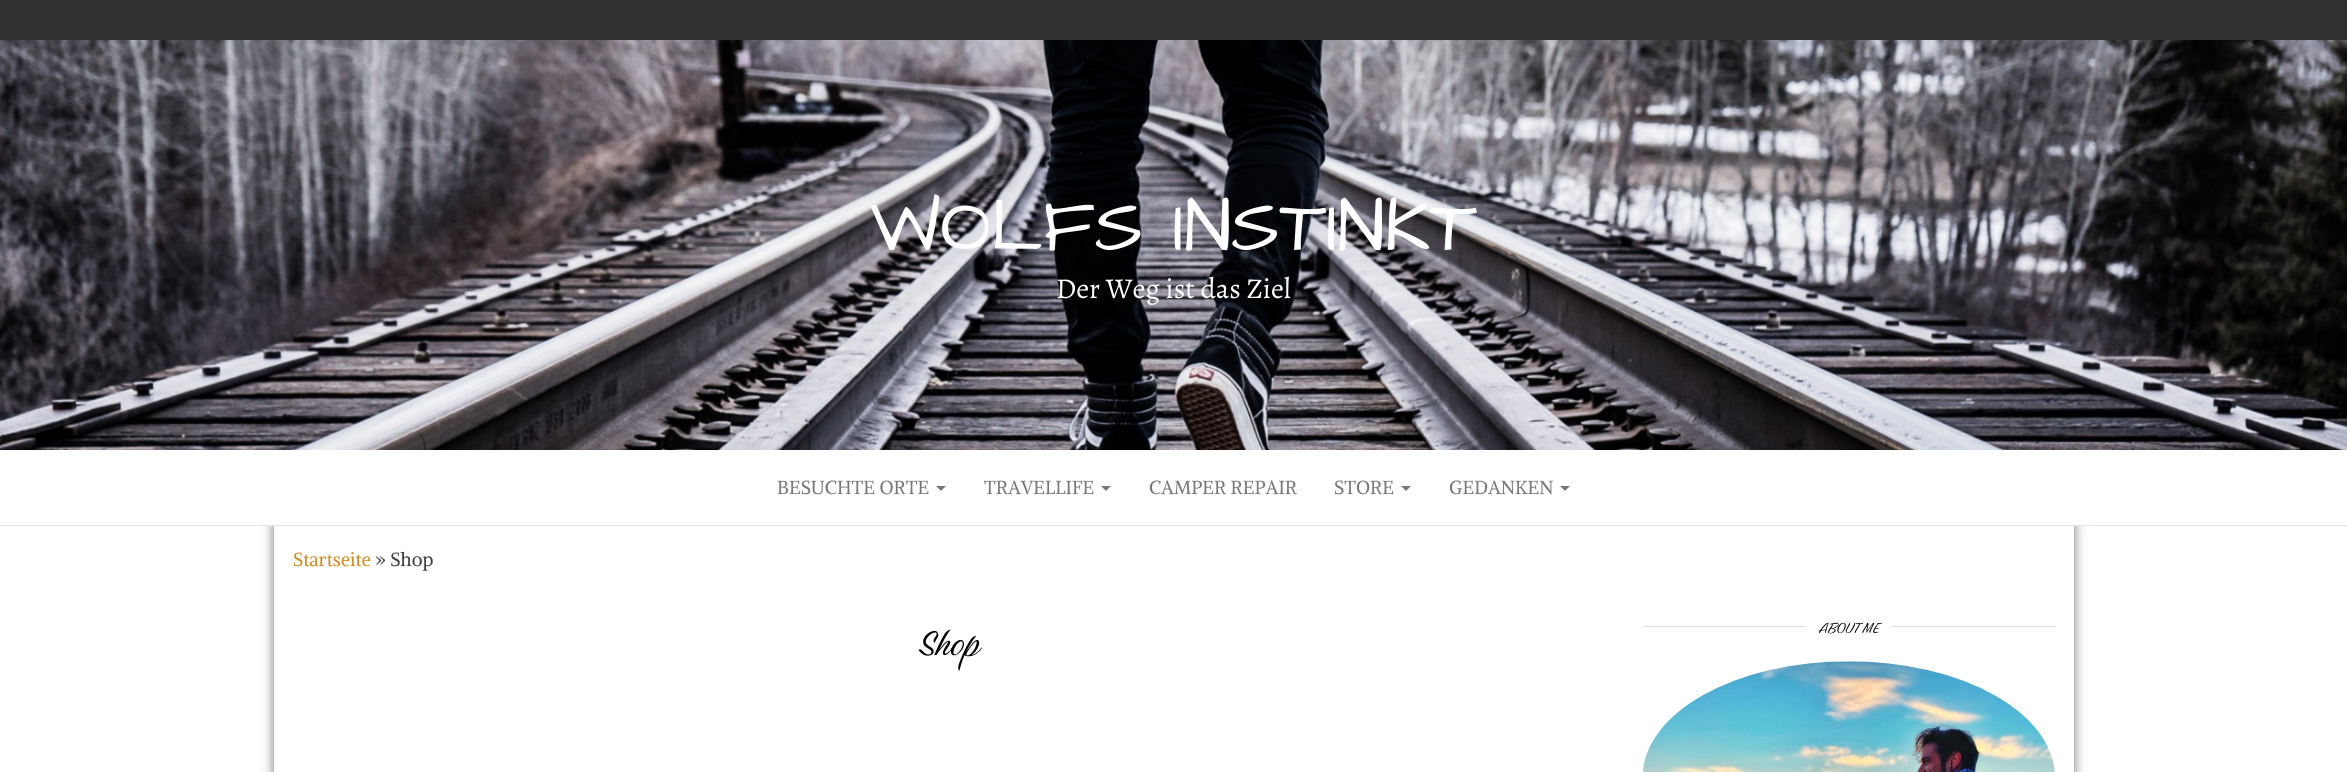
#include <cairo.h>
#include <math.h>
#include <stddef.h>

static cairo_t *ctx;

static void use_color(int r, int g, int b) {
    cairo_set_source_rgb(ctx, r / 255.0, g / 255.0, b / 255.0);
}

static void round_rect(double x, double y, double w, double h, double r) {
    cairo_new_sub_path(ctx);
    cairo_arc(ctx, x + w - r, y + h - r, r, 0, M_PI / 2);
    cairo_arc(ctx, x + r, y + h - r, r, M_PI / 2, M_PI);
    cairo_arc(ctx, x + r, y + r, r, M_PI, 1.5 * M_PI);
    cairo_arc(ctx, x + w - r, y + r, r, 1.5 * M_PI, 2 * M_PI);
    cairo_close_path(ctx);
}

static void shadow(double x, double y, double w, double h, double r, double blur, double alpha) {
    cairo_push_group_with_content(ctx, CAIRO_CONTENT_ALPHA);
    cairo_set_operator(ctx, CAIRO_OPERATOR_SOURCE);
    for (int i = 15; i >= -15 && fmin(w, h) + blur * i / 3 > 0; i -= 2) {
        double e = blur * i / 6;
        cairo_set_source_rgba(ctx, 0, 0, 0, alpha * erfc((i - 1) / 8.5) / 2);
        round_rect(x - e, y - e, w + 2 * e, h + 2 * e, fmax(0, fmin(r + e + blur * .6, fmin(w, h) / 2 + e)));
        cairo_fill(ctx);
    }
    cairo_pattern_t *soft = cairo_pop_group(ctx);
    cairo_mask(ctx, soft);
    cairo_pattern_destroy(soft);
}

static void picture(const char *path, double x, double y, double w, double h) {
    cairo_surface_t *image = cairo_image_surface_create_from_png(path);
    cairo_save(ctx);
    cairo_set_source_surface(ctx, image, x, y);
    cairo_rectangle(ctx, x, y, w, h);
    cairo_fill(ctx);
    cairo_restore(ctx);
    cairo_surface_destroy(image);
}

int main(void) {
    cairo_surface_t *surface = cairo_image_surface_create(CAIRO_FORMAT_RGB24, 2347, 772);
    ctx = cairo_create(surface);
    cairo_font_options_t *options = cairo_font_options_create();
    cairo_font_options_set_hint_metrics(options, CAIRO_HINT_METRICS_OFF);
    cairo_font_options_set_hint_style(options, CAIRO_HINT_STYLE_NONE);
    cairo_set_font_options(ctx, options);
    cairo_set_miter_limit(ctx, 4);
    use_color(255, 255, 255);
    cairo_paint(ctx);
    use_color(49, 49, 49);
    cairo_rectangle(ctx, 0, 0, 2347, 40);
    cairo_fill(ctx);
    picture("img1.png", 0, 40, 2347, 410);
    cairo_select_font_face(ctx, "Architects Daughter", CAIRO_FONT_SLANT_NORMAL, CAIRO_FONT_WEIGHT_NORMAL);
    cairo_set_font_size(ctx, 75);
    use_color(255, 255, 255);
    cairo_move_to(ctx, 870, 250);
    cairo_show_text(ctx, "WOLFS INSTINKT");
    cairo_select_font_face(ctx, "Alegreya", CAIRO_FONT_SLANT_NORMAL, CAIRO_FONT_WEIGHT_NORMAL);
    cairo_set_font_size(ctx, 28.75);
    cairo_move_to(ctx, 1056, 298);
    cairo_show_text(ctx, "Der Weg ist das Ziel");
    use_color(0, 0, 0);
    shadow(274, 526, 1800, 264, 0, 6, 0.55);
    use_color(255, 255, 255);
    cairo_rectangle(ctx, 264, 513, 1820, 12);
    cairo_fill(ctx);
    use_color(227, 227, 227);
    cairo_rectangle(ctx, 0, 525, 2347, 1);
    cairo_fill(ctx);
    cairo_select_font_face(ctx, "Alike Angular", CAIRO_FONT_SLANT_NORMAL, CAIRO_FONT_WEIGHT_NORMAL);
    cairo_set_font_size(ctx, 18.75);
    use_color(119, 119, 119);
    cairo_move_to(ctx, 777, 494);
    cairo_show_text(ctx, "BESUCHTE ORTE");
    cairo_new_path(ctx);
    cairo_move_to(ctx, 936, 486);
    cairo_line_to(ctx, 946, 486);
    cairo_line_to(ctx, 941, 491);
    cairo_close_path(ctx);
    cairo_fill(ctx);
    cairo_move_to(ctx, 984, 494);
    cairo_show_text(ctx, "TRAVELLIFE");
    cairo_new_path(ctx);
    cairo_move_to(ctx, 1101, 486);
    cairo_line_to(ctx, 1111, 486);
    cairo_line_to(ctx, 1106, 491);
    cairo_close_path(ctx);
    cairo_fill(ctx);
    cairo_move_to(ctx, 1149, 494);
    cairo_show_text(ctx, "CAMPER REPAIR");
    cairo_move_to(ctx, 1334, 494);
    cairo_show_text(ctx, "STORE");
    cairo_new_path(ctx);
    cairo_move_to(ctx, 1401, 486);
    cairo_line_to(ctx, 1411, 486);
    cairo_line_to(ctx, 1406, 491);
    cairo_close_path(ctx);
    cairo_fill(ctx);
    cairo_move_to(ctx, 1449, 494);
    cairo_show_text(ctx, "GEDANKEN");
    cairo_new_path(ctx);
    cairo_move_to(ctx, 1560, 486);
    cairo_line_to(ctx, 1570, 486);
    cairo_line_to(ctx, 1565, 491);
    cairo_close_path(ctx);
    cairo_fill(ctx);
    use_color(255, 255, 255);
    cairo_rectangle(ctx, 274, 526, 1800, 246);
    cairo_fill(ctx);
    use_color(208, 140, 34);
    cairo_move_to(ctx, 293, 566);
    cairo_show_text(ctx, "Startseite");
    use_color(64, 64, 64);
    cairo_move_to(ctx, 375, 566);
    cairo_show_text(ctx, "» Shop");
    cairo_select_font_face(ctx, "Birthstone", CAIRO_FONT_SLANT_NORMAL, CAIRO_FONT_WEIGHT_NORMAL);
    cairo_set_font_size(ctx, 45);
    use_color(0, 0, 0);
    cairo_move_to(ctx, 918, 655);
    cairo_show_text(ctx, "Shop");
    use_color(221, 221, 221);
    cairo_rectangle(ctx, 1643, 626, 412, 1);
    cairo_fill(ctx);
    use_color(255, 255, 255);
    cairo_rectangle(ctx, 1806, 626, 85, 1);
    cairo_fill(ctx);
    cairo_set_font_size(ctx, 18.75);
    use_color(0, 0, 0);
    cairo_move_to(ctx, 1819, 633);
    cairo_show_text(ctx, "ABOUT ME");
    picture("img2.png", 1642, 661, 413, 111);
    cairo_surface_write_to_png(surface, "result.png");
    cairo_font_options_destroy(options);
    cairo_destroy(ctx);
    cairo_surface_destroy(surface);
    return 0;
}
